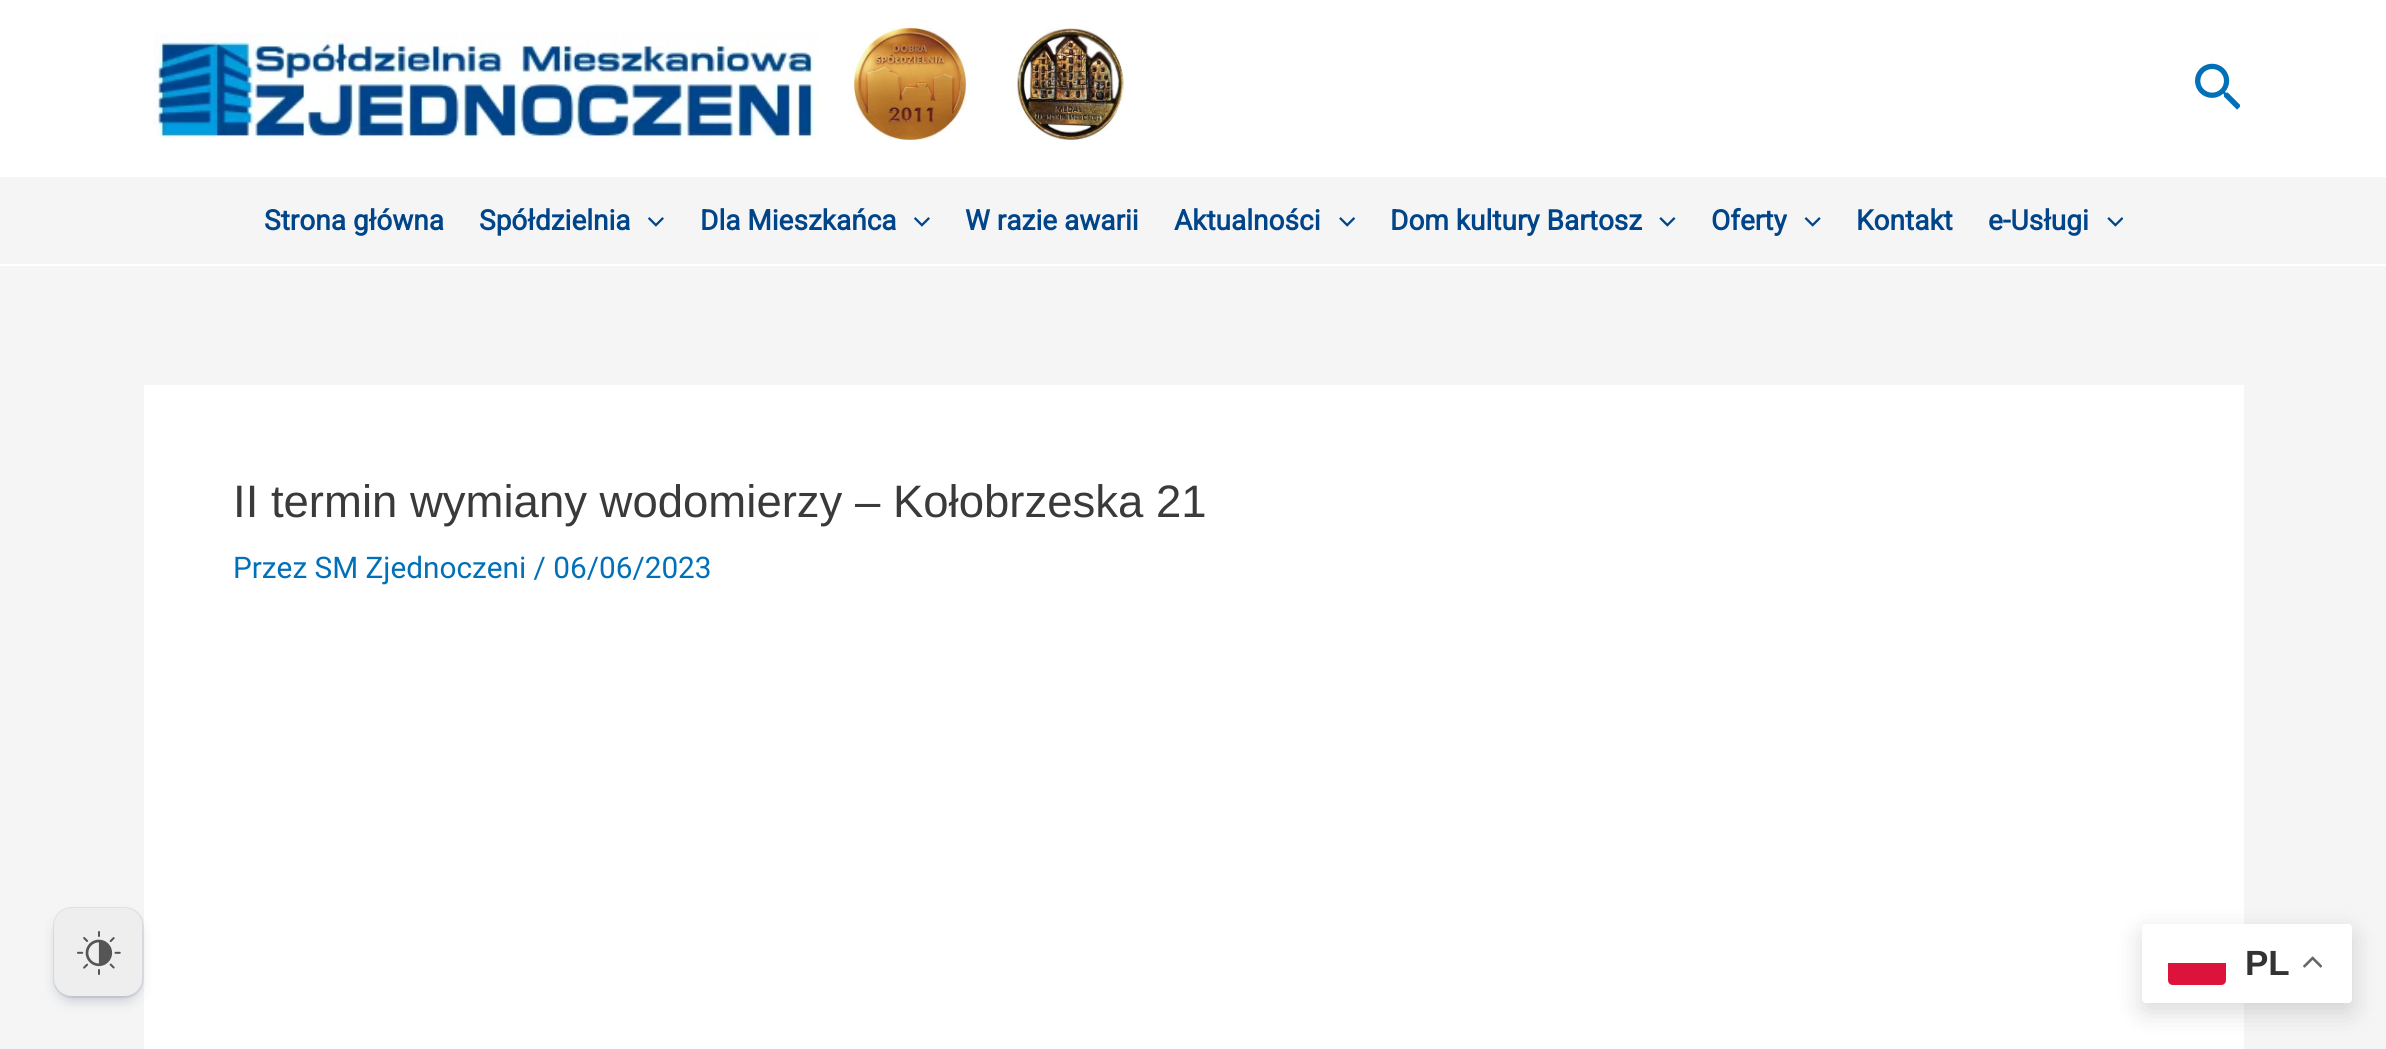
#include <cairo.h>
#include <math.h>
#include <stddef.h>

static cairo_t *ctx;

static void use_color(int r, int g, int b) {
    cairo_set_source_rgb(ctx, r / 255.0, g / 255.0, b / 255.0);
}

static void round_rect(double x, double y, double w, double h, double r) {
    cairo_new_sub_path(ctx);
    cairo_arc(ctx, x + w - r, y + h - r, r, 0, M_PI / 2);
    cairo_arc(ctx, x + r, y + h - r, r, M_PI / 2, M_PI);
    cairo_arc(ctx, x + r, y + r, r, M_PI, 1.5 * M_PI);
    cairo_arc(ctx, x + w - r, y + r, r, 1.5 * M_PI, 2 * M_PI);
    cairo_close_path(ctx);
}

static void shadow(double x, double y, double w, double h, double r, double blur, double alpha) {
    cairo_push_group_with_content(ctx, CAIRO_CONTENT_ALPHA);
    cairo_set_operator(ctx, CAIRO_OPERATOR_SOURCE);
    for (int i = 15; i >= -15 && fmin(w, h) + blur * i / 3 > 0; i -= 2) {
        double e = blur * i / 6;
        cairo_set_source_rgba(ctx, 0, 0, 0, alpha * erfc((i - 1) / 8.5) / 2);
        round_rect(x - e, y - e, w + 2 * e, h + 2 * e, fmax(0, fmin(r + e + blur * .6, fmin(w, h) / 2 + e)));
        cairo_fill(ctx);
    }
    cairo_pattern_t *soft = cairo_pop_group(ctx);
    cairo_mask(ctx, soft);
    cairo_pattern_destroy(soft);
}

static void picture(const char *path, double x, double y, double w, double h) {
    cairo_surface_t *image = cairo_image_surface_create_from_png(path);
    cairo_save(ctx);
    cairo_set_source_surface(ctx, image, x, y);
    cairo_rectangle(ctx, x, y, w, h);
    cairo_fill(ctx);
    cairo_restore(ctx);
    cairo_surface_destroy(image);
}

int main(void) {
    cairo_surface_t *surface = cairo_image_surface_create(CAIRO_FORMAT_RGB24, 2386, 1049);
    ctx = cairo_create(surface);
    cairo_font_options_t *options = cairo_font_options_create();
    cairo_font_options_set_hint_metrics(options, CAIRO_HINT_METRICS_OFF);
    cairo_font_options_set_hint_style(options, CAIRO_HINT_STYLE_NONE);
    cairo_set_font_options(ctx, options);
    cairo_set_miter_limit(ctx, 4);
    use_color(245, 245, 245);
    cairo_paint(ctx);
    use_color(255, 255, 255);
    cairo_rectangle(ctx, 0, 0, 2386, 177);
    cairo_fill(ctx);
    picture("img1.png", 154, 33, 665, 106);
    picture("img2.png", 854, 28, 112, 112);
    picture("img3.png", 1017, 28, 107, 112);
    picture("img4.png", 2195, 63, 45, 47);
    cairo_rectangle(ctx, 0, 264, 2386, 2);
    cairo_fill(ctx);
    cairo_select_font_face(ctx, "Roboto", CAIRO_FONT_SLANT_NORMAL, CAIRO_FONT_WEIGHT_BOLD);
    cairo_set_font_size(ctx, 28);
    use_color(0, 68, 138);
    cairo_move_to(ctx, 264, 230);
    cairo_show_text(ctx, "Strona główna");
    cairo_move_to(ctx, 479, 230);
    cairo_show_text(ctx, "Spółdzielnia");
    picture("img5.png", 648, 217, 16, 10);
    cairo_move_to(ctx, 700, 230);
    cairo_show_text(ctx, "Dla Mieszkańca");
    picture("img5.png", 914, 217, 16, 10);
    cairo_move_to(ctx, 965, 230);
    cairo_show_text(ctx, "W razie awarii");
    cairo_move_to(ctx, 1174, 230);
    cairo_show_text(ctx, "Aktualności");
    picture("img6.png", 1339, 217, 16, 10);
    cairo_move_to(ctx, 1390, 230);
    cairo_show_text(ctx, "Dom kultury Bartosz");
    picture("img7.png", 1659, 217, 17, 10);
    cairo_move_to(ctx, 1711, 230);
    cairo_show_text(ctx, "Oferty");
    picture("img8.png", 1804, 217, 17, 10);
    cairo_move_to(ctx, 1856, 230);
    cairo_show_text(ctx, "Kontakt");
    cairo_move_to(ctx, 1988, 230);
    cairo_show_text(ctx, "e-Usługi");
    picture("img9.png", 2107, 217, 16, 10);
    use_color(255, 255, 255);
    cairo_rectangle(ctx, 144, 385, 2100, 664);
    cairo_fill(ctx);
    cairo_select_font_face(ctx, "Liberation Sans", CAIRO_FONT_SLANT_NORMAL, CAIRO_FONT_WEIGHT_NORMAL);
    cairo_set_font_size(ctx, 45.5);
    use_color(58, 58, 58);
    cairo_move_to(ctx, 233, 517);
    cairo_show_text(ctx, "II termin wymiany wodomierzy – Kołobrzeska 21");
    cairo_select_font_face(ctx, "Roboto", CAIRO_FONT_SLANT_NORMAL, CAIRO_FONT_WEIGHT_NORMAL);
    cairo_set_font_size(ctx, 29.75);
    use_color(1, 112, 185);
    cairo_move_to(ctx, 233, 578);
    cairo_show_text(ctx, "Przez SM Zjednoczeni / 06/06/2023");
    round_rect(54, 908, 89, 89, 18);
    use_color(226, 228, 231);
    cairo_stroke(ctx);
    use_color(9, 30, 66);
    shadow(58, 919, 80, 80, 14, 7, 0.25);
    use_color(238, 238, 238);
    round_rect(54, 908, 88, 88, 18);
    cairo_fill(ctx);
    picture("img10.png", 77, 931, 44, 44);
    use_color(0, 0, 0);
    shadow(2142, 933, 210, 79, 4, 13, 0.15);
    use_color(255, 255, 255);
    round_rect(2142, 924, 210, 79, 4);
    cairo_fill(ctx);
    use_color(220, 20, 60);
    cairo_new_path(ctx);
    cairo_move_to(ctx, 2168, 963);
    cairo_line_to(ctx, 2226, 963);
    cairo_line_to(ctx, 2226, 980);
    cairo_curve_to(ctx, 2226, 983, 2224, 985, 2221, 985);
    cairo_line_to(ctx, 2173, 985);
    cairo_curve_to(ctx, 2170, 985, 2168, 983, 2168, 980);
    cairo_close_path(ctx);
    cairo_fill(ctx);
    cairo_select_font_face(ctx, "Liberation Sans", CAIRO_FONT_SLANT_NORMAL, CAIRO_FONT_WEIGHT_BOLD);
    cairo_set_font_size(ctx, 35);
    use_color(51, 51, 51);
    cairo_move_to(ctx, 2245, 975);
    cairo_show_text(ctx, "PL");
    picture("img11.png", 2303, 956, 19, 12);
    cairo_surface_write_to_png(surface, "result.png");
    cairo_font_options_destroy(options);
    cairo_destroy(ctx);
    cairo_surface_destroy(surface);
    return 0;
}
